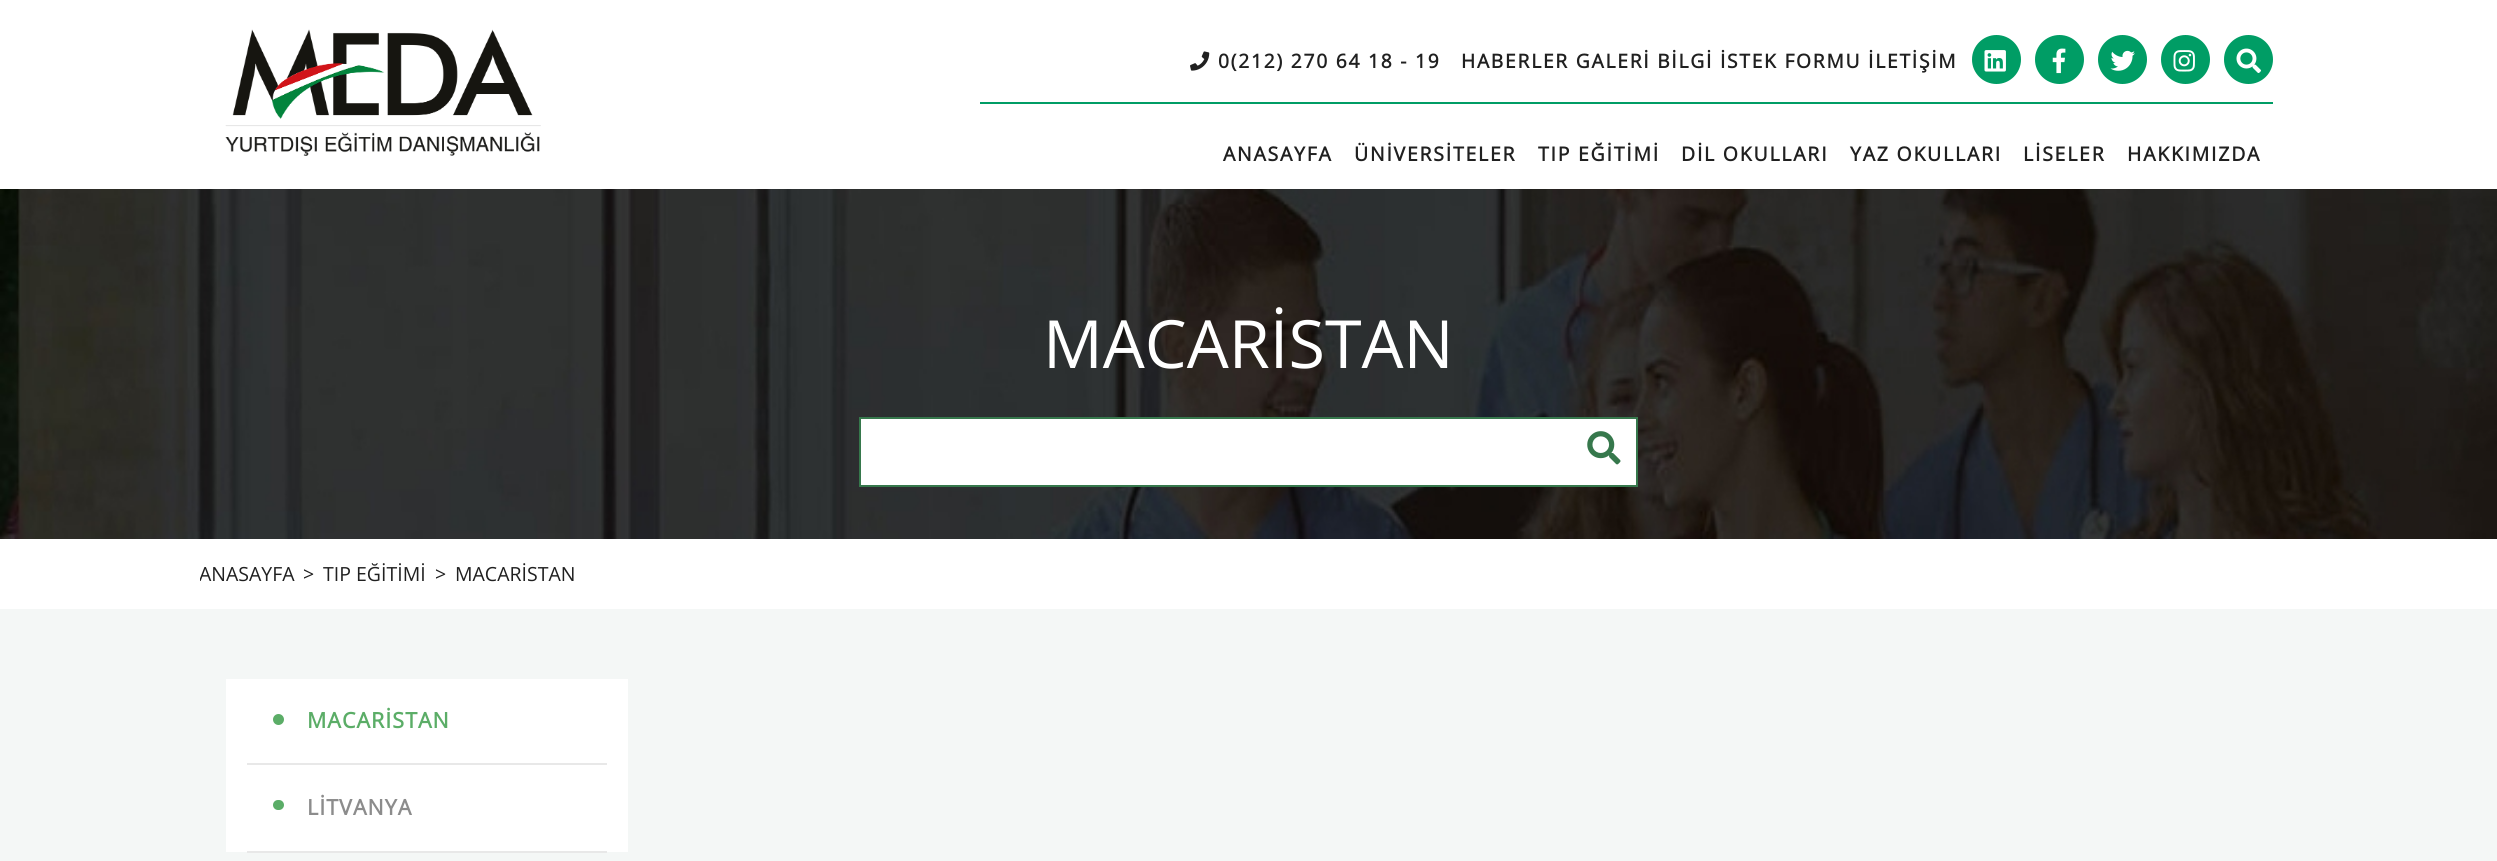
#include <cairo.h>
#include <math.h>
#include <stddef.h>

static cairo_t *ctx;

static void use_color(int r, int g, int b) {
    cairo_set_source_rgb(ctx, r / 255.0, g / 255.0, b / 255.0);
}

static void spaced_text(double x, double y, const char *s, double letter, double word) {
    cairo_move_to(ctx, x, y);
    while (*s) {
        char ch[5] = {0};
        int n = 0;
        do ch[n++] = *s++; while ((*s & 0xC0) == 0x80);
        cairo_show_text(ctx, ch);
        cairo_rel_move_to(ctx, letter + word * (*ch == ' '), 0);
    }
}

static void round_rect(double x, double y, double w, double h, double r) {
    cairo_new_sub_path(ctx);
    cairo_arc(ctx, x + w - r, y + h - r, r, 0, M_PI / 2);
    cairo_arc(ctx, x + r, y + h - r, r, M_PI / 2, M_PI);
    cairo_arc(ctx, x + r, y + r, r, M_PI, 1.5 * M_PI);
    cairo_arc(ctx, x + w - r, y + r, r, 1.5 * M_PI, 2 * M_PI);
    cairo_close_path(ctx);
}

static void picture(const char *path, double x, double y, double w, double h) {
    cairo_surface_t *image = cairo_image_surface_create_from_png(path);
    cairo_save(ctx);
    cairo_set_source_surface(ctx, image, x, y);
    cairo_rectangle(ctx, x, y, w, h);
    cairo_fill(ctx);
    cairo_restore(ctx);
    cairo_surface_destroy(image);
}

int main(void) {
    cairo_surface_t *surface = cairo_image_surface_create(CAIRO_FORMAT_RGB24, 2497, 861);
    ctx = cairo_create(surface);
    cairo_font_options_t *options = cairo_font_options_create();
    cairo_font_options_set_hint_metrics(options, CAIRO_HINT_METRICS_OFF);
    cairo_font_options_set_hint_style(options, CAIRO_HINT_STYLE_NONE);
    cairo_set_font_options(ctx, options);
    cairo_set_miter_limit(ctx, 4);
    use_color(255, 255, 255);
    cairo_paint(ctx);
    picture("img1.png", 225, 29, 316, 127);
    use_color(0, 157, 101);
    cairo_rectangle(ctx, 980, 102, 1293, 2);
    cairo_fill(ctx);
    picture("img2.png", 1190, 51, 20, 20);
    cairo_select_font_face(ctx, "Open Sans", CAIRO_FONT_SLANT_NORMAL, CAIRO_FONT_WEIGHT_BOLD);
    cairo_set_font_size(ctx, 19.25);
    use_color(32, 32, 32);
    spaced_text(1218, 68, "0(212) 270 64 18 - 19", 1.75, 0);
    spaced_text(1461, 68, "HABERLER GALERİ BİLGİ İSTEK FORMU İLETİŞİM", 1.75, 0);
    use_color(0, 157, 101);
    cairo_new_path(ctx);
    cairo_arc(ctx, 1996.5, 59.5, 24.5, 0, 2 * M_PI);
    cairo_fill(ctx);
    picture("img3.png", 1984, 50, 22, 22);
    cairo_arc(ctx, 2059.5, 59.5, 24.5, 0, 2 * M_PI);
    cairo_fill(ctx);
    picture("img4.png", 2052, 48, 14, 26);
    cairo_arc(ctx, 2122.5, 59.5, 24.5, 0, 2 * M_PI);
    cairo_fill(ctx);
    picture("img5.png", 2110, 50, 25, 21);
    cairo_arc(ctx, 2185.5, 59.5, 24.5, 0, 2 * M_PI);
    cairo_fill(ctx);
    picture("img6.png", 2173, 50, 22, 22);
    cairo_arc(ctx, 2248.5, 59.5, 24.5, 0, 2 * M_PI);
    cairo_fill(ctx);
    picture("img7.png", 2236, 48, 25, 25);
    cairo_set_font_size(ctx, 19.5);
    use_color(32, 32, 32);
    spaced_text(1223, 161, "ANASAYFA", 1.75, 0);
    spaced_text(1354, 161, "ÜNİVERSİTELER", 1.75, 0);
    spaced_text(1538, 161, "TIP EĞİTİMİ", 1.75, 0);
    spaced_text(1681, 161, "DİL OKULLARI", 1.75, 0);
    spaced_text(1850, 161, "YAZ OKULLARI", 1.75, 0);
    spaced_text(2023, 161, "LİSELER", 1.75, 0);
    spaced_text(2127, 161, "HAKKIMIZDA", 1.75, 0);
    use_color(244, 247, 246);
    cairo_rectangle(ctx, 0, 609, 2497, 252);
    cairo_fill(ctx);
    picture("img8.png", 0, 189, 2497, 350);
    cairo_select_font_face(ctx, "Open Sans", CAIRO_FONT_SLANT_NORMAL, CAIRO_FONT_WEIGHT_NORMAL);
    cairo_set_font_size(ctx, 66.5);
    use_color(255, 255, 255);
    cairo_move_to(ctx, 1043, 368);
    cairo_show_text(ctx, "MACARİSTAN");
    cairo_rectangle(ctx, 860, 418, 777, 68);
    cairo_fill_preserve(ctx);
    use_color(54, 120, 76);
    cairo_stroke(ctx);
    picture("img9.png", 1587, 431, 34, 34);
    cairo_save(ctx);
    cairo_rectangle(ctx, 200, 557, 2100, 35);
    cairo_clip(ctx);
    cairo_set_font_size(ctx, 19.5);
    use_color(32, 32, 32);
    cairo_move_to(ctx, 199, 581);
    cairo_show_text(ctx, "ANASAYFA");
    cairo_restore(ctx);
    cairo_set_font_size(ctx, 19.5);
    use_color(32, 32, 32);
    cairo_move_to(ctx, 303, 581);
    cairo_show_text(ctx, ">");
    cairo_move_to(ctx, 323, 581);
    cairo_show_text(ctx, "TIP EĞİTİMİ");
    cairo_move_to(ctx, 435, 581);
    cairo_show_text(ctx, ">");
    cairo_move_to(ctx, 455, 581);
    cairo_show_text(ctx, "MACARİSTAN");
    use_color(255, 255, 255);
    cairo_rectangle(ctx, 226, 679, 402, 173);
    cairo_fill(ctx);
    use_color(232, 232, 232);
    cairo_rectangle(ctx, 247, 763, 360, 2);
    cairo_fill(ctx);
    use_color(91, 173, 103);
    cairo_arc(ctx, 278.5, 719.5, 5.5, 0, 2 * M_PI);
    cairo_fill(ctx);
    cairo_select_font_face(ctx, "Open Sans", CAIRO_FONT_SLANT_NORMAL, CAIRO_FONT_WEIGHT_BOLD);
    cairo_set_font_size(ctx, 21.5);
    spaced_text(307, 728, "MACARİSTAN", 1, 0);
    use_color(232, 232, 232);
    cairo_rectangle(ctx, 247, 851, 360, 2);
    cairo_fill(ctx);
    use_color(91, 173, 103);
    round_rect(273, 800, 11, 10, 5);
    cairo_fill(ctx);
    use_color(140, 140, 140);
    spaced_text(307, 815, "LİTVANYA", 1, 0);
    cairo_surface_write_to_png(surface, "result.png");
    cairo_font_options_destroy(options);
    cairo_destroy(ctx);
    cairo_surface_destroy(surface);
    return 0;
}
